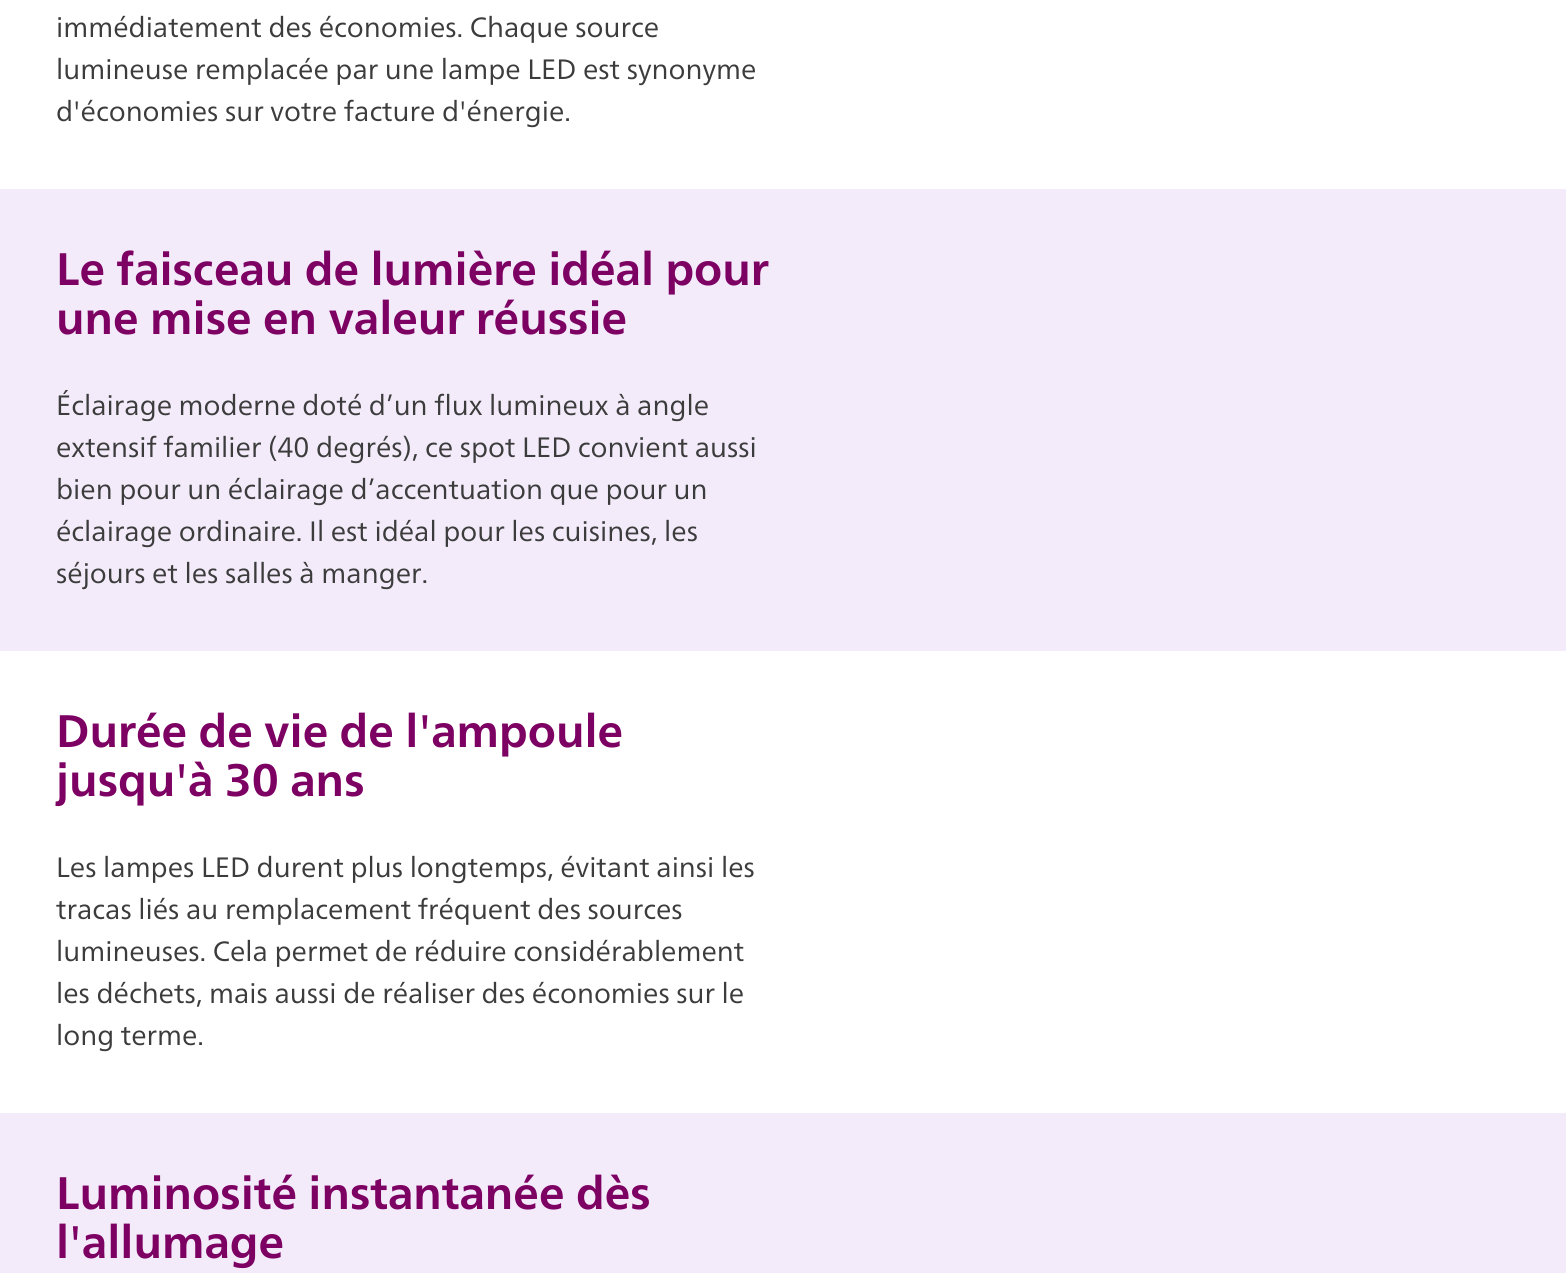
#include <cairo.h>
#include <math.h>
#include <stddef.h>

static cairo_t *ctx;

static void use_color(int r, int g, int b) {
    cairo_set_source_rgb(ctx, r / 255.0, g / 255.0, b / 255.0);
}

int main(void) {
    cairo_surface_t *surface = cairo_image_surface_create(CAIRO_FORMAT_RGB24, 1566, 1273);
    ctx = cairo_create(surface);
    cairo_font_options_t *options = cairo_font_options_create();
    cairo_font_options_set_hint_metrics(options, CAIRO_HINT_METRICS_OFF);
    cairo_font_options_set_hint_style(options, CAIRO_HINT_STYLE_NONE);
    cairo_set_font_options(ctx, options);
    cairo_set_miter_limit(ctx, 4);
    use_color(255, 255, 255);
    cairo_paint(ctx);
    cairo_select_font_face(ctx, "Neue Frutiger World", CAIRO_FONT_SLANT_NORMAL, CAIRO_FONT_WEIGHT_NORMAL);
    cairo_set_font_size(ctx, 28);
    use_color(60, 60, 60);
    cairo_move_to(ctx, 56, 37);
    cairo_show_text(ctx, "immédiatement des économies. Chaque source");
    cairo_move_to(ctx, 56, 79);
    cairo_show_text(ctx, "lumineuse remplacée par une lampe LED est synonyme");
    cairo_move_to(ctx, 56, 121);
    cairo_show_text(ctx, "d'économies sur votre facture d'énergie.");
    use_color(243, 235, 250);
    cairo_rectangle(ctx, 0, 189, 1566, 462);
    cairo_fill(ctx);
    cairo_select_font_face(ctx, "Neue Frutiger World", CAIRO_FONT_SLANT_NORMAL, CAIRO_FONT_WEIGHT_BOLD);
    cairo_set_font_size(ctx, 45.5);
    use_color(125, 0, 99);
    cairo_move_to(ctx, 56, 285);
    cairo_show_text(ctx, "Le faisceau de lumière idéal pour");
    cairo_move_to(ctx, 56, 334);
    cairo_show_text(ctx, "une mise en valeur réussie");
    cairo_select_font_face(ctx, "Neue Frutiger World", CAIRO_FONT_SLANT_NORMAL, CAIRO_FONT_WEIGHT_NORMAL);
    cairo_set_font_size(ctx, 28);
    use_color(60, 60, 60);
    cairo_move_to(ctx, 56, 415);
    cairo_show_text(ctx, "Éclairage moderne doté d’un flux lumineux à angle");
    cairo_move_to(ctx, 56, 457);
    cairo_show_text(ctx, "extensif familier (40 degrés), ce spot LED convient aussi");
    cairo_move_to(ctx, 56, 499);
    cairo_show_text(ctx, "bien pour un éclairage d’accentuation que pour un");
    cairo_move_to(ctx, 56, 541);
    cairo_show_text(ctx, "éclairage ordinaire. Il est idéal pour les cuisines, les");
    cairo_move_to(ctx, 56, 583);
    cairo_show_text(ctx, "séjours et les salles à manger.");
    cairo_select_font_face(ctx, "Neue Frutiger World", CAIRO_FONT_SLANT_NORMAL, CAIRO_FONT_WEIGHT_BOLD);
    cairo_set_font_size(ctx, 45.5);
    use_color(125, 0, 99);
    cairo_move_to(ctx, 56, 747);
    cairo_show_text(ctx, "Durée de vie de l'ampoule");
    cairo_move_to(ctx, 56, 796);
    cairo_show_text(ctx, "jusqu'à 30 ans");
    cairo_select_font_face(ctx, "Neue Frutiger World", CAIRO_FONT_SLANT_NORMAL, CAIRO_FONT_WEIGHT_NORMAL);
    cairo_set_font_size(ctx, 28);
    use_color(60, 60, 60);
    cairo_move_to(ctx, 56, 877);
    cairo_show_text(ctx, "Les lampes LED durent plus longtemps, évitant ainsi les");
    cairo_move_to(ctx, 56, 919);
    cairo_show_text(ctx, "tracas liés au remplacement fréquent des sources");
    cairo_move_to(ctx, 56, 961);
    cairo_show_text(ctx, "lumineuses. Cela permet de réduire considérablement");
    cairo_move_to(ctx, 56, 1003);
    cairo_show_text(ctx, "les déchets, mais aussi de réaliser des économies sur le");
    cairo_move_to(ctx, 56, 1045);
    cairo_show_text(ctx, "long terme.");
    use_color(243, 235, 250);
    cairo_rectangle(ctx, 0, 1113, 1566, 160);
    cairo_fill(ctx);
    cairo_select_font_face(ctx, "Neue Frutiger World", CAIRO_FONT_SLANT_NORMAL, CAIRO_FONT_WEIGHT_BOLD);
    cairo_set_font_size(ctx, 45.5);
    use_color(125, 0, 99);
    cairo_move_to(ctx, 56, 1209);
    cairo_show_text(ctx, "Luminosité instantanée dès");
    cairo_move_to(ctx, 56, 1258);
    cairo_show_text(ctx, "l'allumage");
    cairo_surface_write_to_png(surface, "result.png");
    cairo_font_options_destroy(options);
    cairo_destroy(ctx);
    cairo_surface_destroy(surface);
    return 0;
}
